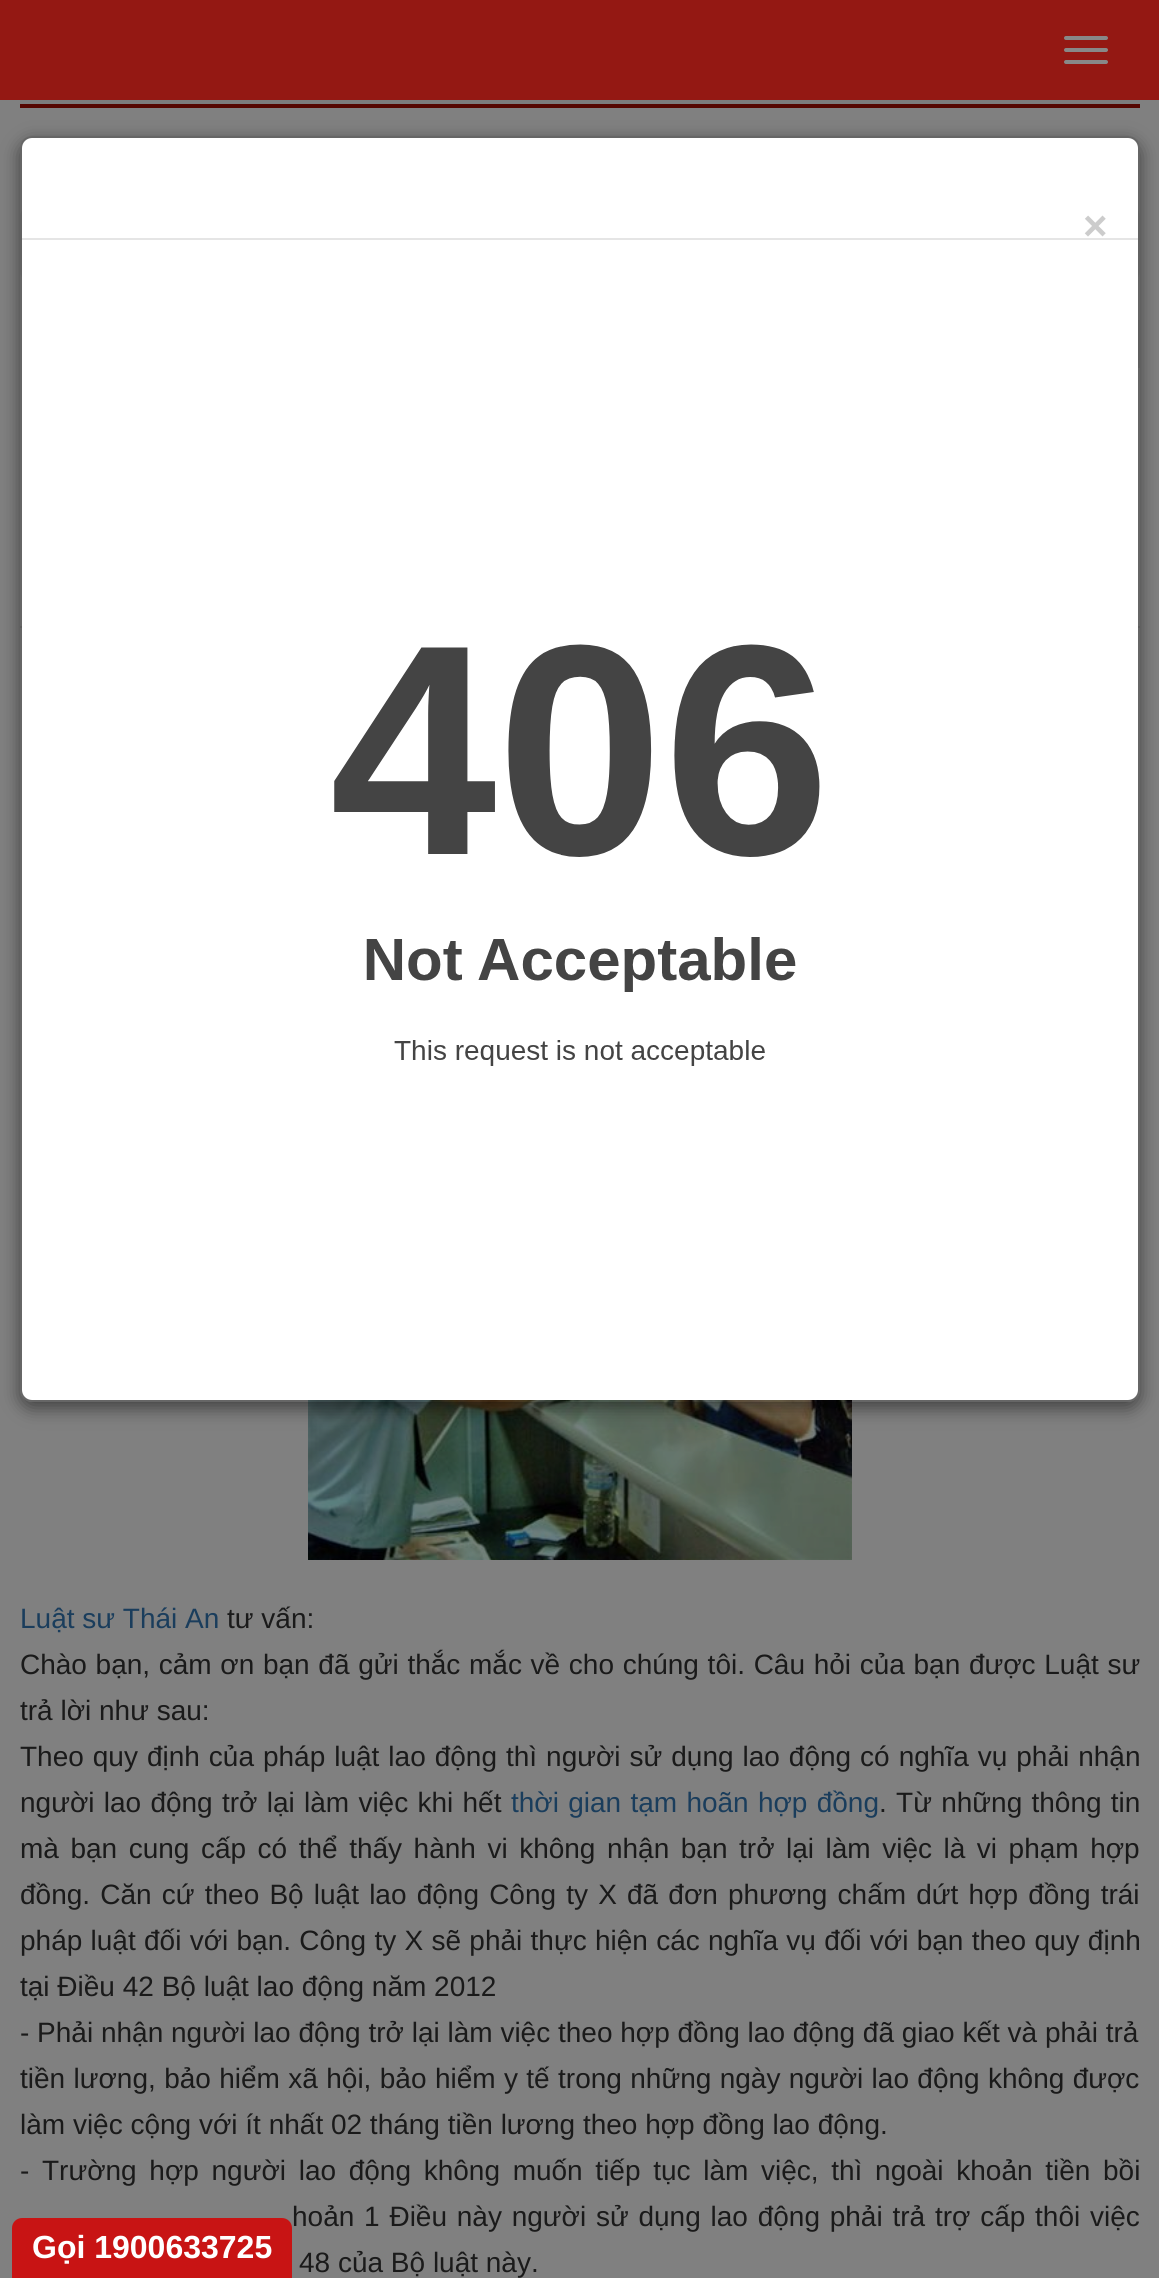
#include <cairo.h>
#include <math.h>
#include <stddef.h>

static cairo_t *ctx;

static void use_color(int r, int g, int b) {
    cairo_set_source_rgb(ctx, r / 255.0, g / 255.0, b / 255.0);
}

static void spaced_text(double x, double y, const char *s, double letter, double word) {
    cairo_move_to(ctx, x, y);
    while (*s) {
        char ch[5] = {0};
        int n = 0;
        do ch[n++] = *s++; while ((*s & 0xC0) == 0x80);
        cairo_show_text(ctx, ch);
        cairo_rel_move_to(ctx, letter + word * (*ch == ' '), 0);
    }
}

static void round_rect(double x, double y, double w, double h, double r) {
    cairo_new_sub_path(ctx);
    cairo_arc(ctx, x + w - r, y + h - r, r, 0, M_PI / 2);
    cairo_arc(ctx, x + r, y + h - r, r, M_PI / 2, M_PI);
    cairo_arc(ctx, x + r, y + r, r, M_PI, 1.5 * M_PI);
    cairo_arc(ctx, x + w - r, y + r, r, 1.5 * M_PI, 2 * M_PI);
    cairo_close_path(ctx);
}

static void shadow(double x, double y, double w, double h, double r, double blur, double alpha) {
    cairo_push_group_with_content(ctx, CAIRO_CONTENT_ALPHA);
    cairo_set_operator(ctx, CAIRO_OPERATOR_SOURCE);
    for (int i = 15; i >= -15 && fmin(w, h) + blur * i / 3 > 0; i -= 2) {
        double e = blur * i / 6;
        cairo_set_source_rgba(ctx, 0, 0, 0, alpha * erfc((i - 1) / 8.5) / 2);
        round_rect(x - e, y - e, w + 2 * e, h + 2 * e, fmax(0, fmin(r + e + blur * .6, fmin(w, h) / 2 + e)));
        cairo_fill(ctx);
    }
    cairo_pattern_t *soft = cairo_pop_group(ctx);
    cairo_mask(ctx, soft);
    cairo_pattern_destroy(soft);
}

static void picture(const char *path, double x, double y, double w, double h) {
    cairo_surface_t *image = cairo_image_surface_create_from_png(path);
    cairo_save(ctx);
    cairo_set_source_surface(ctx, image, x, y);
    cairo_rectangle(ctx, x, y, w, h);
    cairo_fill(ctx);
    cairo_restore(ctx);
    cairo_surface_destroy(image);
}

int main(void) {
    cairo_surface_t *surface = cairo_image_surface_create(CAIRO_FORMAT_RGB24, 1159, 2278);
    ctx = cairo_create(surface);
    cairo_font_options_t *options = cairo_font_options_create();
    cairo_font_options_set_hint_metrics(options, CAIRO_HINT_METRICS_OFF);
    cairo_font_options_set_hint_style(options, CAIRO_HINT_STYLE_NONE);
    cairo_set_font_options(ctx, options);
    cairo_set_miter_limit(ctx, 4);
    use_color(128, 128, 128);
    cairo_paint(ctx);
    use_color(148, 24, 19);
    cairo_rectangle(ctx, 0, 0, 1159, 100);
    cairo_fill(ctx);
    use_color(136, 136, 136);
    round_rect(1064, 36, 44, 4, 2);
    cairo_fill(ctx);
    round_rect(1064, 48, 44, 4, 2);
    cairo_fill(ctx);
    round_rect(1064, 60, 44, 4, 2);
    cairo_fill(ctx);
    use_color(124, 124, 124);
    cairo_rectangle(ctx, 20, 100, 1120, 4);
    cairo_fill(ctx);
    use_color(85, 6, 0);
    cairo_rectangle(ctx, 20, 104, 1120, 4);
    cairo_fill(ctx);
    use_color(123, 123, 123);
    round_rect(20, 208, 1120, 72, 8);
    cairo_fill(ctx);
    use_color(115, 115, 115);
    cairo_rectangle(ctx, 20, 626, 1120, 2);
    cairo_fill(ctx);
    use_color(119, 119, 119);
    cairo_rectangle(ctx, 1138, 320, 2, 48);
    cairo_fill(ctx);
    picture("img2.png", 308, 1400, 544, 160);
    cairo_save(ctx);
    cairo_set_fill_rule(ctx, CAIRO_FILL_RULE_EVEN_ODD);
    cairo_new_path(ctx);
    cairo_move_to(ctx, 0, 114);
    cairo_line_to(ctx, 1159, 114);
    cairo_line_to(ctx, 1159, 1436);
    cairo_line_to(ctx, 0, 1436);
    cairo_close_path(ctx);
    cairo_move_to(ctx, 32, 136);
    cairo_line_to(ctx, 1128, 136);
    cairo_curve_to(ctx, 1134.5, 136, 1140, 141.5, 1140, 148);
    cairo_line_to(ctx, 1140, 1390);
    cairo_curve_to(ctx, 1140, 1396.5, 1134.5, 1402, 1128, 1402);
    cairo_line_to(ctx, 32, 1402);
    cairo_curve_to(ctx, 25.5, 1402, 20, 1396.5, 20, 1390);
    cairo_line_to(ctx, 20, 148);
    cairo_curve_to(ctx, 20, 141.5, 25.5, 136, 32, 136);
    cairo_close_path(ctx);
    cairo_clip(ctx);
    use_color(0, 0, 0);
    shadow(20, 142, 1120, 1266, 12, 9, 0.5);
    cairo_restore(ctx);
    use_color(255, 255, 255);
    round_rect(22, 138, 1116, 1262, 10);
    cairo_fill(ctx);
    round_rect(21, 137, 1118, 1264, 11);
    cairo_set_source_rgba(ctx, 0, 0, 0, 0.2);
    cairo_stroke(ctx);
    use_color(229, 229, 229);
    cairo_rectangle(ctx, 22, 238, 1116, 2);
    cairo_fill(ctx);
    cairo_select_font_face(ctx, "Liberation Sans", CAIRO_FONT_SLANT_NORMAL, CAIRO_FONT_WEIGHT_BOLD);
    cairo_set_font_size(ctx, 42);
    use_color(204, 204, 204);
    cairo_move_to(ctx, 1083, 240);
    cairo_show_text(ctx, "×");
    picture("img1.png", 334, 644, 486, 422);
    cairo_select_font_face(ctx, "Liberation Sans", CAIRO_FONT_SLANT_NORMAL, CAIRO_FONT_WEIGHT_NORMAL);
    cairo_set_font_size(ctx, 28);
    use_color(26, 61, 92);
    cairo_move_to(ctx, 20, 1628);
    cairo_show_text(ctx, "Luật sư Thái An");
    use_color(26, 26, 26);
    cairo_move_to(ctx, 227, 1628);
    cairo_show_text(ctx, "tư vấn:");
    spaced_text(20, 1674, "Chào bạn, cảm ơn bạn đã gửi thắc mắc về cho chúng tôi. Câu hỏi của bạn được Luật sư", 0, 0.9);
    cairo_move_to(ctx, 20, 1720);
    cairo_show_text(ctx, "trả lời như sau:");
    spaced_text(20, 1766, "Theo quy định của pháp luật lao động thì người sử dụng lao động có nghĩa vụ phải nhận", 0, 1.2);
    spaced_text(20, 1812, "người lao động trở lại làm việc khi hết", 0, 1.5);
    use_color(26, 61, 92);
    spaced_text(511, 1812, "thời gian tạm hoãn hợp đồng", 0, 1.5);
    use_color(26, 26, 26);
    spaced_text(879, 1812, ". Từ những thông tin", 0, 1.5);
    spaced_text(20, 1858, "mà bạn cung cấp có thể thấy hành vi không nhận bạn trở lại làm việc là vi phạm hợp", 0, 3.75);
    spaced_text(20, 1904, "đồng. Căn cứ theo Bộ luật lao động Công ty X đã đơn phương chấm dứt hợp đồng trái", 0, 2.4);
    spaced_text(20, 1950, "pháp luật đối với bạn. Công ty X sẽ phải thực hiện các nghĩa vụ đối với bạn theo quy định", 0, 0.5);
    cairo_move_to(ctx, 20, 1996);
    cairo_show_text(ctx, "tại Điều 42 Bộ luật lao động năm 2012");
    cairo_move_to(ctx, 20, 2042);
    cairo_show_text(ctx, "- Phải nhận người lao động trở lại làm việc theo hợp đồng lao động đã giao kết và phải trả");
    spaced_text(20, 2088, "tiền lương, bảo hiểm xã hội, bảo hiểm y tế trong những ngày người lao động không được", 0, 0.6);
    cairo_move_to(ctx, 20, 2134);
    cairo_show_text(ctx, "làm việc cộng với ít nhất 02 tháng tiền lương theo hợp đồng lao động.");
    spaced_text(20, 2180, "- Trường hợp người lao động không muốn tiếp tục làm việc, thì ngoài khoản tiền bồi", 0, 4.9);
    spaced_text(292, 2226, "hoản 1 Điều này người sử dụng lao động phải trả trợ cấp thôi việc", 0, 2);
    cairo_move_to(ctx, 299, 2272);
    cairo_show_text(ctx, "48 của Bộ luật này.");
    use_color(200, 20, 20);
    cairo_new_path(ctx);
    cairo_move_to(ctx, 22, 2218);
    cairo_line_to(ctx, 282, 2218);
    cairo_curve_to(ctx, 287.5, 2218, 292, 2222.5, 292, 2228);
    cairo_line_to(ctx, 292, 2278);
    cairo_line_to(ctx, 12, 2278);
    cairo_line_to(ctx, 12, 2228);
    cairo_curve_to(ctx, 12, 2222.5, 16.5, 2218, 22, 2218);
    cairo_close_path(ctx);
    cairo_fill(ctx);
    cairo_select_font_face(ctx, "Liberation Sans", CAIRO_FONT_SLANT_NORMAL, CAIRO_FONT_WEIGHT_BOLD);
    cairo_set_font_size(ctx, 32);
    use_color(255, 255, 255);
    cairo_move_to(ctx, 32, 2258);
    cairo_show_text(ctx, "Gọi 1900633725");
    cairo_surface_write_to_png(surface, "result.png");
    cairo_font_options_destroy(options);
    cairo_destroy(ctx);
    cairo_surface_destroy(surface);
    return 0;
}
